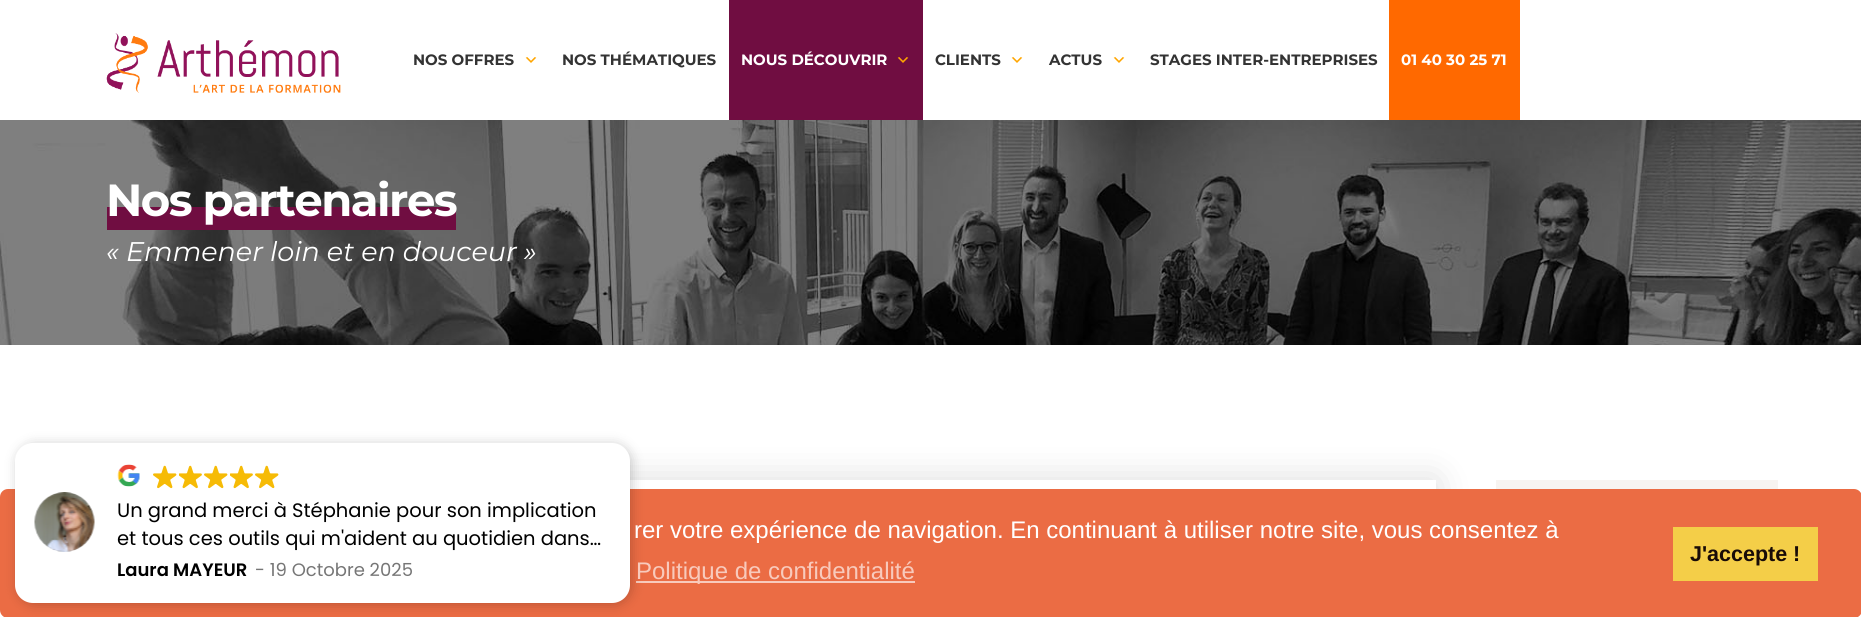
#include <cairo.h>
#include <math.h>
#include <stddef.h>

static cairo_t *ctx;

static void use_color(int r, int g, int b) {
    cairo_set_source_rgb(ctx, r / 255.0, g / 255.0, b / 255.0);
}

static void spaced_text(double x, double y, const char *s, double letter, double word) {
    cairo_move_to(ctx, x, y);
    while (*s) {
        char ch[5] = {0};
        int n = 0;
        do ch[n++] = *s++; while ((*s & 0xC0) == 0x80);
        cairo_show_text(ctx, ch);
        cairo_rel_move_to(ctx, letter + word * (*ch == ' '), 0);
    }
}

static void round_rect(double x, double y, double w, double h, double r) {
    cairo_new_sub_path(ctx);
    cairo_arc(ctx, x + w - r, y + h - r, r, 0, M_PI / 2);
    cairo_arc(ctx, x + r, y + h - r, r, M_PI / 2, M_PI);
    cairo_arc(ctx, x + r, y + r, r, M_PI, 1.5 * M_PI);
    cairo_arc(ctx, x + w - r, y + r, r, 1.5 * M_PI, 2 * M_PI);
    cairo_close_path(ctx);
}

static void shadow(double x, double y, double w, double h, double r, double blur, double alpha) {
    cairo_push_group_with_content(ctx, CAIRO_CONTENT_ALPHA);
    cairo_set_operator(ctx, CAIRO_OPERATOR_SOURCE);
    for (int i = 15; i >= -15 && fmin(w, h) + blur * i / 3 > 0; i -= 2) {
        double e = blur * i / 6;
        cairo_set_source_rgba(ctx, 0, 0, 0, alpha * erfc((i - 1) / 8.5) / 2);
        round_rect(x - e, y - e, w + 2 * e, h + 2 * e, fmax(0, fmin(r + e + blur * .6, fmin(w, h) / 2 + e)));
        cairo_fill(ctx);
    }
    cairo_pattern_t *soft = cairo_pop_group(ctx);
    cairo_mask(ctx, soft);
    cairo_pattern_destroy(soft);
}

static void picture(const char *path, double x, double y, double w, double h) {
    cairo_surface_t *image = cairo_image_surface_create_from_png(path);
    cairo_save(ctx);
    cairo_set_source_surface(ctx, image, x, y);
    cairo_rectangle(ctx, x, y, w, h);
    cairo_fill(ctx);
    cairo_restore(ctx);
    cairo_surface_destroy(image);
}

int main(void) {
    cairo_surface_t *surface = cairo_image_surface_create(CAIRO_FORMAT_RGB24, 1861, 617);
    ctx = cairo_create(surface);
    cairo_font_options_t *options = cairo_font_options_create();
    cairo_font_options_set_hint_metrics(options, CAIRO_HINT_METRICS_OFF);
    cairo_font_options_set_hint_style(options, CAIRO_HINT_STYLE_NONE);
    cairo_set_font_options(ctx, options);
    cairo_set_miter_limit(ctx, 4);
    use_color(255, 255, 255);
    cairo_paint(ctx);
    picture("img1.png", 106, 33, 235, 60);
    cairo_select_font_face(ctx, "Montserrat", CAIRO_FONT_SLANT_NORMAL, CAIRO_FONT_WEIGHT_BOLD);
    cairo_set_font_size(ctx, 15);
    use_color(51, 51, 51);
    cairo_move_to(ctx, 413, 65);
    cairo_show_text(ctx, "NOS OFFRES");
    picture("img2.png", 525, 57, 12, 6);
    cairo_move_to(ctx, 562, 65);
    cairo_show_text(ctx, "NOS THÉMATIQUES");
    use_color(112, 13, 65);
    cairo_rectangle(ctx, 729, 0, 194, 120);
    cairo_fill(ctx);
    use_color(255, 255, 255);
    cairo_move_to(ctx, 741, 65);
    cairo_show_text(ctx, "NOUS DÉCOUVRIR");
    picture("img3.png", 897, 57, 12, 6);
    use_color(51, 51, 51);
    cairo_move_to(ctx, 935, 65);
    cairo_show_text(ctx, "CLIENTS");
    picture("img2.png", 1011, 57, 12, 6);
    cairo_move_to(ctx, 1049, 65);
    cairo_show_text(ctx, "ACTUS");
    picture("img2.png", 1113, 57, 12, 6);
    cairo_move_to(ctx, 1150, 65);
    cairo_show_text(ctx, "STAGES INTER-ENTREPRISES");
    use_color(255, 105, 0);
    cairo_rectangle(ctx, 1389, 0, 131, 120);
    cairo_fill(ctx);
    use_color(255, 255, 255);
    cairo_move_to(ctx, 1401, 65);
    cairo_show_text(ctx, "01 40 30 25 71");
    picture("img4.png", 0, 120, 1861, 225);
    use_color(112, 13, 65);
    cairo_rectangle(ctx, 107, 207, 349, 23);
    cairo_fill(ctx);
    cairo_set_font_size(ctx, 45);
    use_color(255, 255, 255);
    spaced_text(106, 216, "Nos partenaires", -1.5, 0);
    cairo_select_font_face(ctx, "Montserrat", CAIRO_FONT_SLANT_ITALIC, CAIRO_FONT_WEIGHT_NORMAL);
    cairo_set_font_size(ctx, 27);
    cairo_move_to(ctx, 106, 261);
    cairo_show_text(ctx, "« Emmener loin et en douceur »");
    cairo_save(ctx);
    cairo_set_fill_rule(ctx, CAIRO_FILL_RULE_EVEN_ODD);
    cairo_new_path(ctx);
    cairo_move_to(ctx, 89, 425);
    cairo_line_to(ctx, 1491, 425);
    cairo_line_to(ctx, 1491, 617);
    cairo_line_to(ctx, 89, 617);
    cairo_close_path(ctx);
    cairo_move_to(ctx, 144, 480);
    cairo_line_to(ctx, 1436, 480);
    cairo_line_to(ctx, 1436, 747);
    cairo_line_to(ctx, 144, 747);
    cairo_close_path(ctx);
    cairo_clip(ctx);
    use_color(0, 0, 0);
    shadow(144, 480, 1292, 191, 0, 18, 0.14);
    cairo_restore(ctx);
    use_color(247, 244, 241);
    cairo_rectangle(ctx, 1496, 480, 282, 9);
    cairo_fill(ctx);
    use_color(235, 108, 68);
    round_rect(0, 489, 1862, 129, 8);
    cairo_fill(ctx);
    use_color(248, 202, 188);
    cairo_rectangle(ctx, 636, 581, 279, 2);
    cairo_fill(ctx);
    use_color(0, 0, 0);
    shadow(17, 444, 615, 161, 18, 6, 0.2);
    use_color(255, 255, 255);
    round_rect(15, 443, 615, 160, 18);
    cairo_fill(ctx);
    picture("img5.png", 34, 492, 61, 60);
    picture("img6.png", 117, 464, 23, 23);
    picture("img7.png", 153, 465, 24, 24);
    picture("img8.png", 179, 465, 23, 24);
    picture("img7.png", 204, 465, 24, 24);
    picture("img8.png", 230, 465, 23, 24);
    picture("img7.png", 255, 465, 24, 24);
    cairo_select_font_face(ctx, "Poppins", CAIRO_FONT_SLANT_NORMAL, CAIRO_FONT_WEIGHT_NORMAL);
    cairo_set_font_size(ctx, 19.5);
    use_color(0, 0, 0);
    cairo_move_to(ctx, 117, 517);
    cairo_show_text(ctx, "Un grand merci à Stéphanie pour son implication");
    cairo_move_to(ctx, 117, 545);
    cairo_show_text(ctx, "et tous ces outils qui m'aident au quotidien dans…");
    cairo_select_font_face(ctx, "Poppins SemiBold", CAIRO_FONT_SLANT_NORMAL, CAIRO_FONT_WEIGHT_NORMAL);
    cairo_set_font_size(ctx, 18);
    cairo_move_to(ctx, 117, 576);
    cairo_show_text(ctx, "Laura MAYEUR");
    cairo_select_font_face(ctx, "Poppins", CAIRO_FONT_SLANT_NORMAL, CAIRO_FONT_WEIGHT_NORMAL);
    use_color(118, 118, 118);
    cairo_move_to(ctx, 255, 576);
    cairo_show_text(ctx, "- 19 Octobre 2025");
    cairo_select_font_face(ctx, "Liberation Sans", CAIRO_FONT_SLANT_NORMAL, CAIRO_FONT_WEIGHT_NORMAL);
    cairo_set_font_size(ctx, 24);
    use_color(255, 255, 255);
    cairo_move_to(ctx, 634, 538);
    cairo_show_text(ctx, "rer votre expérience de navigation. En continuant à utiliser notre site, vous consentez à");
    use_color(248, 202, 188);
    cairo_move_to(ctx, 636, 579);
    cairo_show_text(ctx, "Politique de confidentialité");
    use_color(244, 206, 72);
    cairo_rectangle(ctx, 1673, 527, 145, 54);
    cairo_fill(ctx);
    cairo_select_font_face(ctx, "Liberation Sans", CAIRO_FONT_SLANT_NORMAL, CAIRO_FONT_WEIGHT_BOLD);
    cairo_set_font_size(ctx, 21.5);
    use_color(24, 11, 7);
    cairo_move_to(ctx, 1690, 561);
    cairo_show_text(ctx, "J'accepte !");
    cairo_surface_write_to_png(surface, "result.png");
    cairo_font_options_destroy(options);
    cairo_destroy(ctx);
    cairo_surface_destroy(surface);
    return 0;
}
